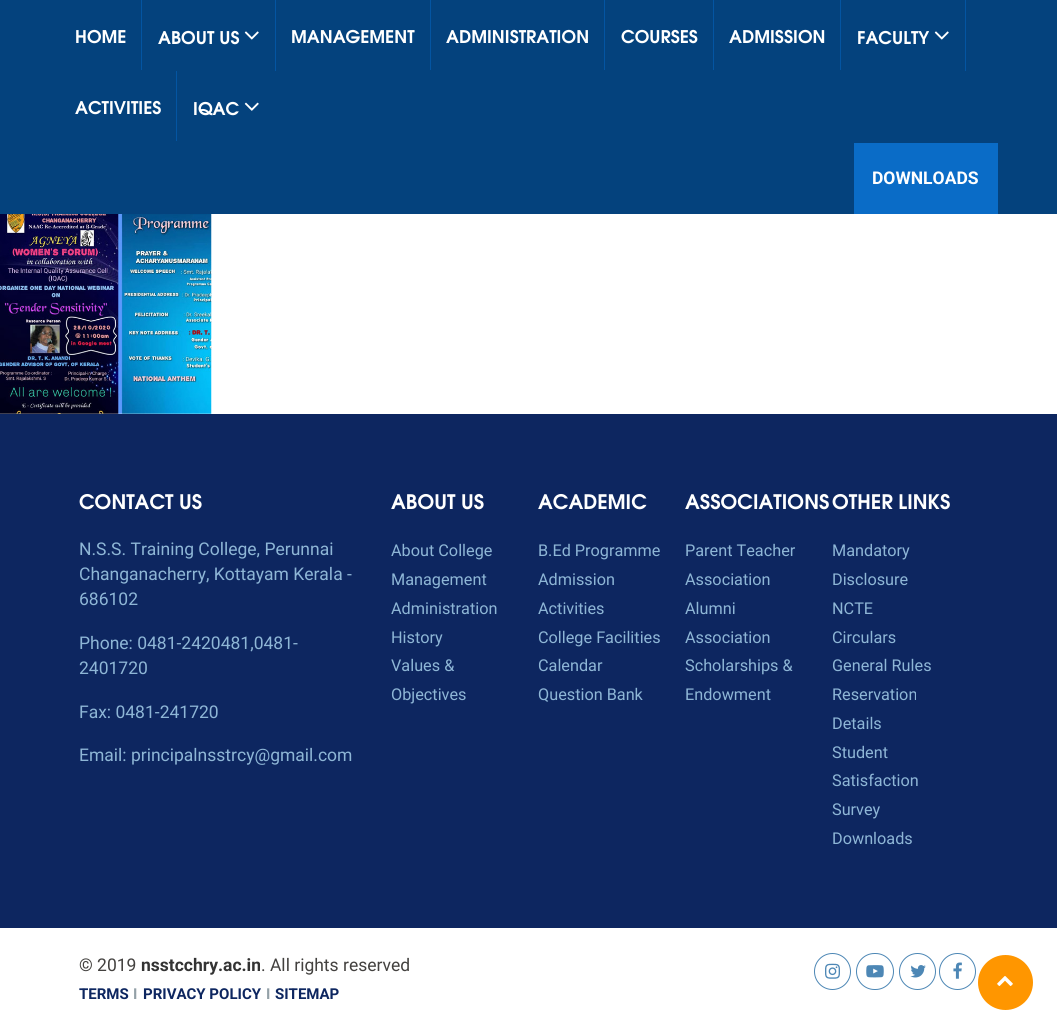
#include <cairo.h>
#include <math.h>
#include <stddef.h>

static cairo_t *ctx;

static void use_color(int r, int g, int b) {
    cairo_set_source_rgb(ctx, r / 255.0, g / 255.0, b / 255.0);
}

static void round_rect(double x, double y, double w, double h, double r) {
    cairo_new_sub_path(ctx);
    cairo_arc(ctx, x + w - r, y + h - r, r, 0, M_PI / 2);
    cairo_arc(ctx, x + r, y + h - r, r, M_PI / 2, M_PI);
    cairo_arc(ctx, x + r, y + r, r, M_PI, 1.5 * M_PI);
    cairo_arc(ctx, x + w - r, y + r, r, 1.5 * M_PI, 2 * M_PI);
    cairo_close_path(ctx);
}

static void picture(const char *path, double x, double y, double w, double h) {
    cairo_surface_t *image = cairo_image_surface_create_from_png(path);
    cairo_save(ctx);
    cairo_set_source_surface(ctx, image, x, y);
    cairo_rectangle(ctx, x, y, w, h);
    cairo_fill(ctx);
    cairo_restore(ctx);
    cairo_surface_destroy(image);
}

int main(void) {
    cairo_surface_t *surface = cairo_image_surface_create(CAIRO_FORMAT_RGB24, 1057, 1035);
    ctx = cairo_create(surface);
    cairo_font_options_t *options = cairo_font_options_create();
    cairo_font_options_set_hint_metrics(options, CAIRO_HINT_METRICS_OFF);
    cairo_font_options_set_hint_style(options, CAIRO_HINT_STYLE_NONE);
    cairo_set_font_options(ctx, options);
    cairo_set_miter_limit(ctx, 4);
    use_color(255, 255, 255);
    cairo_paint(ctx);
    use_color(4, 66, 125);
    cairo_rectangle(ctx, 0, 0, 1057, 214);
    cairo_fill(ctx);
    use_color(4, 85, 162);
    cairo_rectangle(ctx, 141, 0, 1, 70);
    cairo_fill(ctx);
    cairo_select_font_face(ctx, "TeX Gyre Adventor", CAIRO_FONT_SLANT_NORMAL, CAIRO_FONT_WEIGHT_BOLD);
    cairo_set_font_size(ctx, 17.5);
    use_color(255, 255, 255);
    cairo_move_to(ctx, 75, 43);
    cairo_show_text(ctx, "HOME");
    use_color(4, 85, 162);
    cairo_rectangle(ctx, 275, 0, 1, 71);
    cairo_fill(ctx);
    use_color(255, 255, 255);
    cairo_move_to(ctx, 158, 44);
    cairo_show_text(ctx, "ABOUT US");
    picture("img1.png", 244, 31, 15, 9);
    use_color(4, 85, 162);
    cairo_rectangle(ctx, 430, 0, 1, 70);
    cairo_fill(ctx);
    use_color(255, 255, 255);
    cairo_move_to(ctx, 291, 43);
    cairo_show_text(ctx, "MANAGEMENT");
    use_color(4, 85, 162);
    cairo_rectangle(ctx, 604, 0, 1, 70);
    cairo_fill(ctx);
    use_color(255, 255, 255);
    cairo_move_to(ctx, 446, 43);
    cairo_show_text(ctx, "ADMINISTRATION");
    use_color(4, 85, 162);
    cairo_rectangle(ctx, 713, 0, 1, 70);
    cairo_fill(ctx);
    use_color(255, 255, 255);
    cairo_move_to(ctx, 621, 43);
    cairo_show_text(ctx, "COURSES");
    use_color(4, 85, 162);
    cairo_rectangle(ctx, 840, 0, 1, 70);
    cairo_fill(ctx);
    use_color(255, 255, 255);
    cairo_move_to(ctx, 729, 43);
    cairo_show_text(ctx, "ADMISSION");
    use_color(4, 85, 162);
    cairo_rectangle(ctx, 965, 0, 1, 71);
    cairo_fill(ctx);
    use_color(255, 255, 255);
    cairo_move_to(ctx, 857, 44);
    cairo_show_text(ctx, "FACULTY");
    picture("img1.png", 934, 31, 15, 9);
    use_color(4, 85, 162);
    cairo_rectangle(ctx, 176, 71, 1, 70);
    cairo_fill(ctx);
    use_color(255, 255, 255);
    cairo_move_to(ctx, 75, 114);
    cairo_show_text(ctx, "ACTIVITIES");
    cairo_move_to(ctx, 193, 115);
    cairo_show_text(ctx, "IQAC");
    picture("img2.png", 244, 102, 15, 9);
    use_color(10, 108, 199);
    cairo_rectangle(ctx, 854, 143, 144, 71);
    cairo_fill(ctx);
    cairo_select_font_face(ctx, "Roboto", CAIRO_FONT_SLANT_NORMAL, CAIRO_FONT_WEIGHT_BOLD);
    use_color(255, 255, 255);
    cairo_move_to(ctx, 872, 184);
    cairo_show_text(ctx, "DOWNLOADS");
    picture("img3.png", 0, 214, 212, 200);
    use_color(13, 38, 96);
    cairo_rectangle(ctx, 0, 414, 1057, 514);
    cairo_fill(ctx);
    cairo_select_font_face(ctx, "TeX Gyre Adventor", CAIRO_FONT_SLANT_NORMAL, CAIRO_FONT_WEIGHT_BOLD);
    cairo_set_font_size(ctx, 20);
    use_color(255, 255, 255);
    cairo_move_to(ctx, 79, 509);
    cairo_show_text(ctx, "CONTACT US");
    cairo_select_font_face(ctx, "Roboto", CAIRO_FONT_SLANT_NORMAL, CAIRO_FONT_WEIGHT_NORMAL);
    cairo_set_font_size(ctx, 17.5);
    use_color(142, 182, 214);
    cairo_move_to(ctx, 79, 555);
    cairo_show_text(ctx, "N.S.S. Training College, Perunnai");
    cairo_move_to(ctx, 79, 580);
    cairo_show_text(ctx, "Changanacherry, Kottayam Kerala -");
    cairo_move_to(ctx, 79, 605);
    cairo_show_text(ctx, "686102");
    cairo_move_to(ctx, 79, 649);
    cairo_show_text(ctx, "Phone: 0481-2420481,0481-");
    cairo_move_to(ctx, 79, 674);
    cairo_show_text(ctx, "2401720");
    cairo_move_to(ctx, 79, 718);
    cairo_show_text(ctx, "Fax: 0481-241720");
    cairo_move_to(ctx, 79, 761);
    cairo_show_text(ctx, "Email: principalnsstrcy@gmail.com");
    cairo_select_font_face(ctx, "TeX Gyre Adventor", CAIRO_FONT_SLANT_NORMAL, CAIRO_FONT_WEIGHT_BOLD);
    cairo_set_font_size(ctx, 20);
    use_color(255, 255, 255);
    cairo_move_to(ctx, 391, 509);
    cairo_show_text(ctx, "ABOUT US");
    cairo_select_font_face(ctx, "Roboto", CAIRO_FONT_SLANT_NORMAL, CAIRO_FONT_WEIGHT_NORMAL);
    cairo_set_font_size(ctx, 16.25);
    use_color(142, 182, 214);
    cairo_move_to(ctx, 391, 556);
    cairo_show_text(ctx, "About College");
    cairo_move_to(ctx, 391, 585);
    cairo_show_text(ctx, "Management");
    cairo_move_to(ctx, 391, 614);
    cairo_show_text(ctx, "Administration");
    cairo_move_to(ctx, 391, 643);
    cairo_show_text(ctx, "History");
    cairo_move_to(ctx, 391, 671);
    cairo_show_text(ctx, "Values &");
    cairo_move_to(ctx, 391, 700);
    cairo_show_text(ctx, "Objectives");
    cairo_select_font_face(ctx, "TeX Gyre Adventor", CAIRO_FONT_SLANT_NORMAL, CAIRO_FONT_WEIGHT_BOLD);
    cairo_set_font_size(ctx, 20);
    use_color(255, 255, 255);
    cairo_move_to(ctx, 538, 509);
    cairo_show_text(ctx, "ACADEMIC");
    cairo_select_font_face(ctx, "Roboto", CAIRO_FONT_SLANT_NORMAL, CAIRO_FONT_WEIGHT_NORMAL);
    cairo_set_font_size(ctx, 16.25);
    use_color(142, 182, 214);
    cairo_move_to(ctx, 538, 556);
    cairo_show_text(ctx, "B.Ed Programme");
    cairo_move_to(ctx, 538, 585);
    cairo_show_text(ctx, "Admission");
    cairo_move_to(ctx, 538, 614);
    cairo_show_text(ctx, "Activities");
    cairo_move_to(ctx, 538, 643);
    cairo_show_text(ctx, "College Facilities");
    cairo_move_to(ctx, 538, 671);
    cairo_show_text(ctx, "Calendar");
    cairo_move_to(ctx, 538, 700);
    cairo_show_text(ctx, "Question Bank");
    cairo_select_font_face(ctx, "TeX Gyre Adventor", CAIRO_FONT_SLANT_NORMAL, CAIRO_FONT_WEIGHT_BOLD);
    cairo_set_font_size(ctx, 20);
    use_color(255, 255, 255);
    cairo_move_to(ctx, 685, 509);
    cairo_show_text(ctx, "ASSOCIATIONS");
    cairo_select_font_face(ctx, "Roboto", CAIRO_FONT_SLANT_NORMAL, CAIRO_FONT_WEIGHT_NORMAL);
    cairo_set_font_size(ctx, 16.25);
    use_color(142, 182, 214);
    cairo_move_to(ctx, 685, 556);
    cairo_show_text(ctx, "Parent Teacher");
    cairo_move_to(ctx, 685, 585);
    cairo_show_text(ctx, "Association");
    cairo_move_to(ctx, 685, 614);
    cairo_show_text(ctx, "Alumni");
    cairo_move_to(ctx, 685, 643);
    cairo_show_text(ctx, "Association");
    cairo_move_to(ctx, 685, 671);
    cairo_show_text(ctx, "Scholarships &");
    cairo_move_to(ctx, 685, 700);
    cairo_show_text(ctx, "Endowment");
    cairo_select_font_face(ctx, "TeX Gyre Adventor", CAIRO_FONT_SLANT_NORMAL, CAIRO_FONT_WEIGHT_BOLD);
    cairo_set_font_size(ctx, 20);
    use_color(255, 255, 255);
    cairo_move_to(ctx, 832, 509);
    cairo_show_text(ctx, "OTHER LINKS");
    cairo_select_font_face(ctx, "Roboto", CAIRO_FONT_SLANT_NORMAL, CAIRO_FONT_WEIGHT_NORMAL);
    cairo_set_font_size(ctx, 16.25);
    use_color(142, 182, 214);
    cairo_move_to(ctx, 832, 556);
    cairo_show_text(ctx, "Mandatory");
    cairo_move_to(ctx, 832, 585);
    cairo_show_text(ctx, "Disclosure");
    cairo_move_to(ctx, 832, 614);
    cairo_show_text(ctx, "NCTE");
    cairo_move_to(ctx, 832, 643);
    cairo_show_text(ctx, "Circulars");
    cairo_move_to(ctx, 832, 671);
    cairo_show_text(ctx, "General Rules");
    cairo_move_to(ctx, 832, 700);
    cairo_show_text(ctx, "Reservation");
    cairo_move_to(ctx, 832, 729);
    cairo_show_text(ctx, "Details");
    cairo_move_to(ctx, 832, 758);
    cairo_show_text(ctx, "Student");
    cairo_move_to(ctx, 832, 786);
    cairo_show_text(ctx, "Satisfaction");
    cairo_move_to(ctx, 832, 815);
    cairo_show_text(ctx, "Survey");
    cairo_move_to(ctx, 832, 844);
    cairo_show_text(ctx, "Downloads");
    cairo_set_font_size(ctx, 17.5);
    use_color(67, 65, 63);
    cairo_move_to(ctx, 79, 971);
    cairo_show_text(ctx, "© 2019");
    cairo_select_font_face(ctx, "Roboto", CAIRO_FONT_SLANT_NORMAL, CAIRO_FONT_WEIGHT_BOLD);
    use_color(51, 51, 51);
    cairo_move_to(ctx, 141, 971);
    cairo_show_text(ctx, "nsstcchry.ac.in");
    cairo_select_font_face(ctx, "Roboto", CAIRO_FONT_SLANT_NORMAL, CAIRO_FONT_WEIGHT_NORMAL);
    use_color(67, 65, 63);
    cairo_move_to(ctx, 261, 971);
    cairo_show_text(ctx, ". All rights reserved");
    cairo_select_font_face(ctx, "Roboto", CAIRO_FONT_SLANT_NORMAL, CAIRO_FONT_WEIGHT_BOLD);
    cairo_set_font_size(ctx, 15);
    use_color(13, 38, 96);
    cairo_move_to(ctx, 79, 999);
    cairo_show_text(ctx, "TERMS");
    use_color(147, 160, 167);
    cairo_move_to(ctx, 133, 999);
    cairo_show_text(ctx, "I");
    use_color(13, 38, 96);
    cairo_move_to(ctx, 143, 999);
    cairo_show_text(ctx, "PRIVACY POLICY");
    use_color(147, 160, 167);
    cairo_move_to(ctx, 266, 999);
    cairo_show_text(ctx, "I");
    use_color(13, 38, 96);
    cairo_move_to(ctx, 275, 999);
    cairo_show_text(ctx, "SITEMAP");
    cairo_new_path(ctx);
    cairo_arc(ctx, 832.5, 971.5, 18, 0, 2 * M_PI);
    use_color(77, 135, 181);
    cairo_set_line_width(ctx, 1);
    cairo_stroke(ctx);
    picture("img4.png", 825, 963, 15, 16);
    round_rect(856.5, 953.5, 37, 36, 18);
    cairo_stroke(ctx);
    picture("img5.png", 866, 965, 18, 13);
    cairo_arc(ctx, 917.5, 971.5, 18, 0, 2 * M_PI);
    cairo_stroke(ctx);
    picture("img6.png", 910, 965, 16, 13);
    cairo_arc(ctx, 957.5, 971.5, 18, 0, 2 * M_PI);
    cairo_stroke(ctx);
    picture("img7.png", 953, 962, 9, 17);
    use_color(255, 150, 0);
    cairo_arc(ctx, 1005.5, 982.5, 27.5, 0, 2 * M_PI);
    cairo_fill(ctx);
    picture("img8.png", 997, 976, 16, 10);
    cairo_surface_write_to_png(surface, "result.png");
    cairo_font_options_destroy(options);
    cairo_destroy(ctx);
    cairo_surface_destroy(surface);
    return 0;
}
